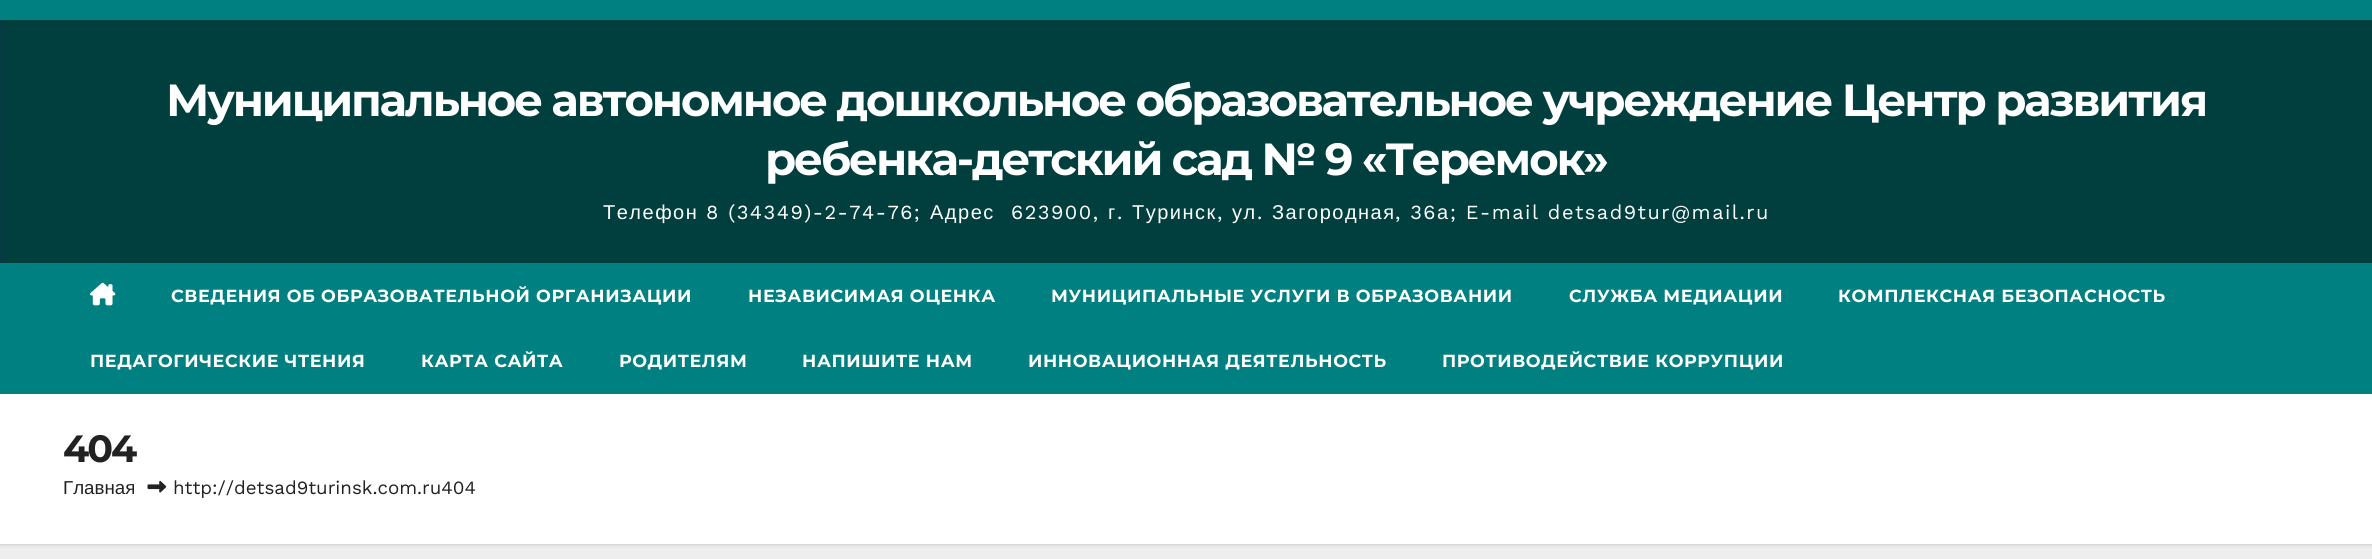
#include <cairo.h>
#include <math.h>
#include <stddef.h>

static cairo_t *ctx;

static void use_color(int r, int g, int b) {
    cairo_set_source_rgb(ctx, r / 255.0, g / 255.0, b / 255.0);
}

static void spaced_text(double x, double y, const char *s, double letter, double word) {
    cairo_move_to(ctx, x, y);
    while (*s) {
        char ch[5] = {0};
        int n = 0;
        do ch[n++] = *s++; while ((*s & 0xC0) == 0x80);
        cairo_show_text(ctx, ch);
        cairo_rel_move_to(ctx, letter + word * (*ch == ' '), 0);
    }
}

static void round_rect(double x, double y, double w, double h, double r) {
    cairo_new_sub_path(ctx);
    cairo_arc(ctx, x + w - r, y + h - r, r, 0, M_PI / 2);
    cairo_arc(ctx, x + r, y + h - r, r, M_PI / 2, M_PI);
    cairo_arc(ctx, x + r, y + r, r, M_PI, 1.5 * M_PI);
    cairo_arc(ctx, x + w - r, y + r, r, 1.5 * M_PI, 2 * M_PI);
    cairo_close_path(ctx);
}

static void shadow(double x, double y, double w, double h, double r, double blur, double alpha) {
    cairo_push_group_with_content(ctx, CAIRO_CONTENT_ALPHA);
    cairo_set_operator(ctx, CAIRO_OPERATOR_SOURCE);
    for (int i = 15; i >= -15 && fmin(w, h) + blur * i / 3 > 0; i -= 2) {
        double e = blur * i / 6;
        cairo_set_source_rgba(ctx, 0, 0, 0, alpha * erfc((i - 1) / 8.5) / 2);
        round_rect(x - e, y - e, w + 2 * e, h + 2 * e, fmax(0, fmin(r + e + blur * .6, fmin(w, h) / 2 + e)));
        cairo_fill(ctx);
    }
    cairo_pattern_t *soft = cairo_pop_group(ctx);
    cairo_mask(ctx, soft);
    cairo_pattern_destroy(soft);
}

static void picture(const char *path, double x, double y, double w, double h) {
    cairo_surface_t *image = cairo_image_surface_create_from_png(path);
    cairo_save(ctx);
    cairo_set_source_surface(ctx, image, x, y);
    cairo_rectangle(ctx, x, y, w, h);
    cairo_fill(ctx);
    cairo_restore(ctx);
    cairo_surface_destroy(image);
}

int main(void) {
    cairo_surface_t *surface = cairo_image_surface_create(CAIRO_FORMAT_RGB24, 2372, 559);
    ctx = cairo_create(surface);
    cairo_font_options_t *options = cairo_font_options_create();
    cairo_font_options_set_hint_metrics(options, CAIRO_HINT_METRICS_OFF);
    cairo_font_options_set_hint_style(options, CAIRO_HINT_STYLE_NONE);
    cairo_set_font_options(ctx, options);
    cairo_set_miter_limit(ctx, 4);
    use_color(238, 238, 238);
    cairo_paint(ctx);
    use_color(0, 128, 128);
    cairo_rectangle(ctx, 0, 0, 2372, 20);
    cairo_fill(ctx);
    picture("img1.png", 0, 20, 2372, 244);
    cairo_select_font_face(ctx, "Montserrat", CAIRO_FONT_SLANT_NORMAL, CAIRO_FONT_WEIGHT_BOLD);
    cairo_set_font_size(ctx, 45);
    use_color(255, 255, 255);
    spaced_text(166, 116, "Муниципальное автономное дошкольное образовательное учреждение Центр развития", -2.12, 0);
    spaced_text(765, 175, "ребенка-детский сад № 9 «Теремок»", -2.12, 0);
    cairo_select_font_face(ctx, "Liberation Sans", CAIRO_FONT_SLANT_NORMAL, CAIRO_FONT_WEIGHT_NORMAL);
    cairo_set_font_size(ctx, 20);
    spaced_text(603, 219, "Телефон", 1.5, 0);
    cairo_select_font_face(ctx, "Work Sans", CAIRO_FONT_SLANT_NORMAL, CAIRO_FONT_WEIGHT_NORMAL);
    spaced_text(706, 219, "8 (34349)-2-74-76;", 1.5, 0);
    cairo_select_font_face(ctx, "Liberation Sans", CAIRO_FONT_SLANT_NORMAL, CAIRO_FONT_WEIGHT_NORMAL);
    spaced_text(930, 219, "Адрес", 1.5, 0);
    cairo_select_font_face(ctx, "Work Sans", CAIRO_FONT_SLANT_NORMAL, CAIRO_FONT_WEIGHT_NORMAL);
    spaced_text(1011, 219, "623900,", 1.5, 0);
    cairo_select_font_face(ctx, "Liberation Sans", CAIRO_FONT_SLANT_NORMAL, CAIRO_FONT_WEIGHT_NORMAL);
    spaced_text(1108, 219, "г", 1.5, 0);
    cairo_select_font_face(ctx, "Work Sans", CAIRO_FONT_SLANT_NORMAL, CAIRO_FONT_WEIGHT_NORMAL);
    spaced_text(1117, 219, ".", 1.5, 0);
    cairo_select_font_face(ctx, "Liberation Sans", CAIRO_FONT_SLANT_NORMAL, CAIRO_FONT_WEIGHT_NORMAL);
    spaced_text(1132, 219, "Туринск", 1.5, 0);
    cairo_select_font_face(ctx, "Work Sans", CAIRO_FONT_SLANT_NORMAL, CAIRO_FONT_WEIGHT_NORMAL);
    spaced_text(1217, 219, ",", 1.5, 0);
    cairo_select_font_face(ctx, "Liberation Sans", CAIRO_FONT_SLANT_NORMAL, CAIRO_FONT_WEIGHT_NORMAL);
    spaced_text(1232, 219, "ул", 1.5, 0);
    cairo_select_font_face(ctx, "Work Sans", CAIRO_FONT_SLANT_NORMAL, CAIRO_FONT_WEIGHT_NORMAL);
    spaced_text(1257, 219, ".", 1.5, 0);
    cairo_select_font_face(ctx, "Liberation Sans", CAIRO_FONT_SLANT_NORMAL, CAIRO_FONT_WEIGHT_NORMAL);
    spaced_text(1272, 219, "Загородная", 1.5, 0);
    cairo_select_font_face(ctx, "Work Sans", CAIRO_FONT_SLANT_NORMAL, CAIRO_FONT_WEIGHT_NORMAL);
    spaced_text(1395, 219, ", 36", 1.5, 0);
    cairo_select_font_face(ctx, "Liberation Sans", CAIRO_FONT_SLANT_NORMAL, CAIRO_FONT_WEIGHT_NORMAL);
    spaced_text(1437, 219, "а", 1.5, 0);
    cairo_select_font_face(ctx, "Work Sans", CAIRO_FONT_SLANT_NORMAL, CAIRO_FONT_WEIGHT_NORMAL);
    spaced_text(1450, 219, "; E-mail detsad9tur@mail.ru", 1.5, 0);
    use_color(0, 0, 0);
    shadow(0, 395, 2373, 150, 0, 2, 0.15);
    use_color(0, 128, 128);
    cairo_rectangle(ctx, 0, 264, 2372, 130);
    cairo_fill(ctx);
    picture("img2.png", 90, 282, 26, 24);
    cairo_select_font_face(ctx, "Montserrat", CAIRO_FONT_SLANT_NORMAL, CAIRO_FONT_WEIGHT_BOLD);
    cairo_set_font_size(ctx, 17.5);
    use_color(255, 255, 255);
    spaced_text(171, 302, "СВЕДЕНИЯ ОБ ОБРАЗОВАТЕЛЬНОЙ ОРГАНИЗАЦИИ", 0.6, 0);
    spaced_text(748, 302, "НЕЗАВИСИМАЯ ОЦЕНКА", 0.6, 0);
    spaced_text(1051, 302, "МУНИЦИПАЛЬНЫЕ УСЛУГИ В ОБРАЗОВАНИИ", 0.6, 0);
    spaced_text(1569, 302, "СЛУЖБА МЕДИАЦИИ", 0.6, 0);
    spaced_text(1838, 302, "КОМПЛЕКСНАЯ БЕЗОПАСНОСТЬ", 0.6, 0);
    spaced_text(90, 367, "ПЕДАГОГИЧЕСКИЕ ЧТЕНИЯ", 0.6, 0);
    spaced_text(421, 367, "КАРТА САЙТА", 0.6, 0);
    spaced_text(619, 367, "РОДИТЕЛЯМ", 0.6, 0);
    spaced_text(802, 367, "НАПИШИТЕ НАМ", 0.6, 0);
    spaced_text(1028, 367, "ИННОВАЦИОННАЯ ДЕЯТЕЛЬНОСТЬ", 0.6, 0);
    spaced_text(1442, 367, "ПРОТИВОДЕЙСТВИЕ КОРРУПЦИИ", 0.6, 0);
    cairo_rectangle(ctx, 0, 394, 2372, 150);
    cairo_fill(ctx);
    cairo_set_font_size(ctx, 38);
    use_color(34, 34, 34);
    spaced_text(63, 462, "404", -2, 0);
    cairo_select_font_face(ctx, "Liberation Sans", CAIRO_FONT_SLANT_NORMAL, CAIRO_FONT_WEIGHT_NORMAL);
    cairo_set_font_size(ctx, 18.75);
    cairo_move_to(ctx, 63, 494);
    cairo_show_text(ctx, "Главная");
    picture("img3.png", 147, 480, 20, 13);
    cairo_select_font_face(ctx, "Work Sans", CAIRO_FONT_SLANT_NORMAL, CAIRO_FONT_WEIGHT_NORMAL);
    cairo_move_to(ctx, 173, 494);
    cairo_show_text(ctx, "http://detsad9turinsk.com.ru404");
    cairo_surface_write_to_png(surface, "result.png");
    cairo_font_options_destroy(options);
    cairo_destroy(ctx);
    cairo_surface_destroy(surface);
    return 0;
}
